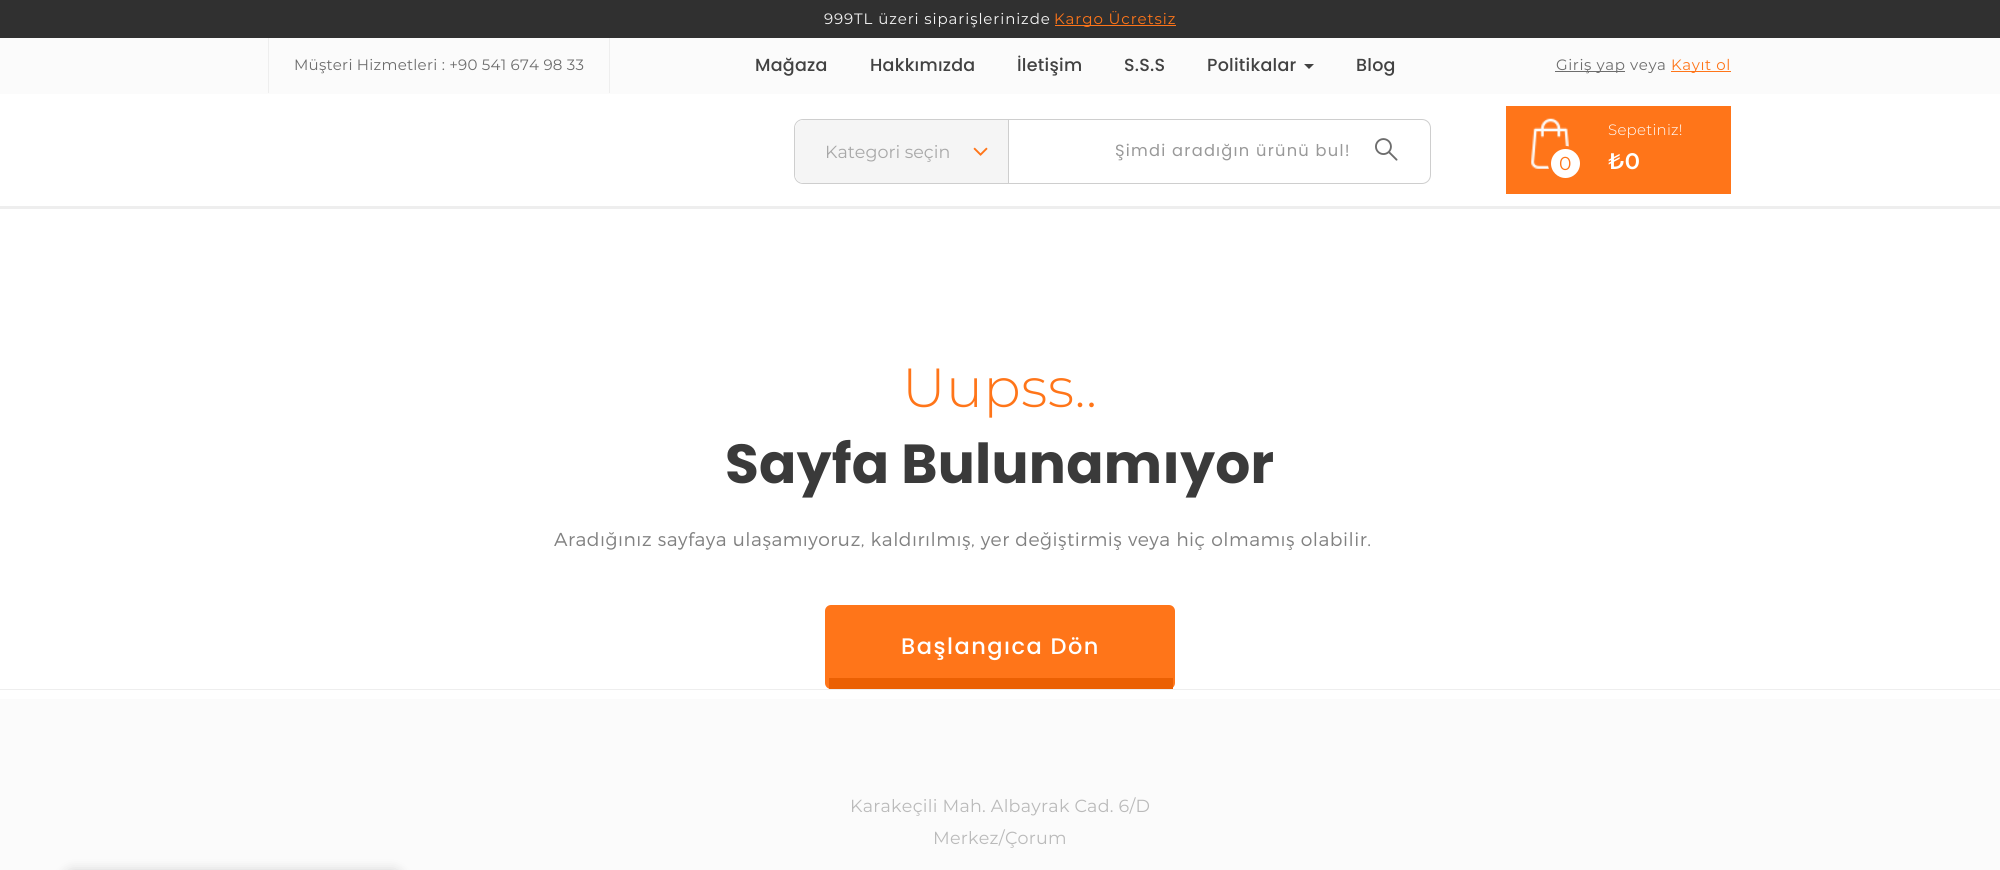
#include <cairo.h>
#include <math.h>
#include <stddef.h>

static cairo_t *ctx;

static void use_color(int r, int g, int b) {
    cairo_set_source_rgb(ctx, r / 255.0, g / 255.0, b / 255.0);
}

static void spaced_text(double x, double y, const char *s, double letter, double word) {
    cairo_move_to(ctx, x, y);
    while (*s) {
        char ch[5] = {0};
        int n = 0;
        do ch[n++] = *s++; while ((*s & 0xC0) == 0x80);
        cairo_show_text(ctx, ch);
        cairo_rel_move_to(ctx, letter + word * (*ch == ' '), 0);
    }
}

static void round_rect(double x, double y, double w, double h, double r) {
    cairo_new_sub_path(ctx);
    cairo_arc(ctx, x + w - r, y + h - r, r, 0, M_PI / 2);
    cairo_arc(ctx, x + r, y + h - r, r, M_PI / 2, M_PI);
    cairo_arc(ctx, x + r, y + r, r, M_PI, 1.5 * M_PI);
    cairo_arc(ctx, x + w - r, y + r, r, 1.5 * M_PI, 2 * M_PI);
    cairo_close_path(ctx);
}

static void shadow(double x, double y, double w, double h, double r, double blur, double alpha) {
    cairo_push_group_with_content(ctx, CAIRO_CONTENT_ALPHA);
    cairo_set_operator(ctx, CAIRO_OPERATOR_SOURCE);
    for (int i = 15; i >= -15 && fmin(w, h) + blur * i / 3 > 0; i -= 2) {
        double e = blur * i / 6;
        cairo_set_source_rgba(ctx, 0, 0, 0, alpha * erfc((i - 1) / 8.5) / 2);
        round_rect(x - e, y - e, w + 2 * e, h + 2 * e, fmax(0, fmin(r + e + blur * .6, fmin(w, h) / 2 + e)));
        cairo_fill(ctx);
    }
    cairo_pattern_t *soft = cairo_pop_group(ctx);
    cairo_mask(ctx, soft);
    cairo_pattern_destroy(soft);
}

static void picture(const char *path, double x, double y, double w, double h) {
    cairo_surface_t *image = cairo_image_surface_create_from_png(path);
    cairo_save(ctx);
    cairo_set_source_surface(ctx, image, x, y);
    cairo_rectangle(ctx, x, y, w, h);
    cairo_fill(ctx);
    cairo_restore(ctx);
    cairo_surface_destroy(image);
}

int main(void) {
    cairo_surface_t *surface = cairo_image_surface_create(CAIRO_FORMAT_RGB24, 2000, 870);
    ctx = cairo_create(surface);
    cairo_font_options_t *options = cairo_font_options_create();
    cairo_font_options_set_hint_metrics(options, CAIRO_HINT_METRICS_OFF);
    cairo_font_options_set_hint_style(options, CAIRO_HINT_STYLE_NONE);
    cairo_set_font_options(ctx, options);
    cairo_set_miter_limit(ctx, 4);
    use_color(255, 255, 255);
    cairo_paint(ctx);
    use_color(238, 238, 238);
    cairo_rectangle(ctx, 0, 206, 2000, 3);
    cairo_fill(ctx);
    use_color(251, 251, 251);
    cairo_rectangle(ctx, 0, 38, 2000, 56);
    cairo_fill(ctx);
    use_color(48, 48, 48);
    cairo_rectangle(ctx, 0, 0, 2000, 38);
    cairo_fill(ctx);
    cairo_select_font_face(ctx, "Montserrat", CAIRO_FONT_SLANT_NORMAL, CAIRO_FONT_WEIGHT_NORMAL);
    cairo_set_font_size(ctx, 15);
    use_color(245, 245, 245);
    spaced_text(824, 24, "999TL üzeri siparişlerinizde", 0.9, 0);
    use_color(255, 117, 25);
    cairo_rectangle(ctx, 1055, 25, 121, 1);
    cairo_fill(ctx);
    spaced_text(1054, 24, "Kargo Ücretsiz", 0.9, 0);
    use_color(238, 238, 238);
    cairo_rectangle(ctx, 609, 38, 1, 55);
    cairo_fill(ctx);
    cairo_rectangle(ctx, 268, 38, 1, 55);
    cairo_fill(ctx);
    use_color(109, 109, 109);
    spaced_text(294, 70, "Müşteri Hizmetleri : +90 541 674 98 33", 0.25, 0);
    cairo_select_font_face(ctx, "Poppins Medium", CAIRO_FONT_SLANT_NORMAL, CAIRO_FONT_WEIGHT_NORMAL);
    cairo_set_font_size(ctx, 17.5);
    use_color(66, 66, 66);
    spaced_text(755, 71, "Mağaza", 0.25, 0);
    spaced_text(870, 71, "Hakkımızda", 0.25, 0);
    spaced_text(1017, 71, "İletişim", 0.25, 0);
    spaced_text(1124, 71, "S.S.S", 0.25, 0);
    spaced_text(1207, 71, "Politikalar", 0.25, 0);
    cairo_new_path(ctx);
    cairo_move_to(ctx, 1304, 64);
    cairo_line_to(ctx, 1314, 64);
    cairo_line_to(ctx, 1309, 69);
    cairo_close_path(ctx);
    cairo_fill(ctx);
    spaced_text(1356, 71, "Blog", 0.25, 0);
    use_color(109, 109, 109);
    cairo_rectangle(ctx, 1555, 71, 70, 1);
    cairo_fill(ctx);
    cairo_select_font_face(ctx, "Montserrat", CAIRO_FONT_SLANT_NORMAL, CAIRO_FONT_WEIGHT_NORMAL);
    cairo_set_font_size(ctx, 15);
    spaced_text(1556, 70, "Giriş yap", 0.6, 0);
    spaced_text(1630, 70, "veya", 0.6, 0);
    use_color(255, 117, 25);
    cairo_rectangle(ctx, 1671, 71, 60, 1);
    cairo_fill(ctx);
    spaced_text(1671, 70, "Kayıt ol", 0.6, 0);
    round_rect(794.5, 119.5, 636, 64, 8.5);
    use_color(206, 206, 206);
    cairo_set_line_width(ctx, 1);
    cairo_stroke(ctx);
    use_color(245, 245, 245);
    cairo_new_path(ctx);
    cairo_move_to(ctx, 804, 120);
    cairo_line_to(ctx, 1008, 120);
    cairo_line_to(ctx, 1008, 183);
    cairo_line_to(ctx, 804, 183);
    cairo_curve_to(ctx, 799, 183, 795, 179, 795, 174);
    cairo_line_to(ctx, 795, 129);
    cairo_curve_to(ctx, 795, 124, 799, 120, 804, 120);
    cairo_close_path(ctx);
    cairo_fill(ctx);
    cairo_set_font_size(ctx, 17.5);
    use_color(168, 168, 168);
    cairo_move_to(ctx, 825, 158);
    cairo_show_text(ctx, "Kategori seçin");
    picture("img1.png", 973, 147, 15, 9);
    use_color(206, 206, 206);
    cairo_rectangle(ctx, 1008, 120, 1, 63);
    cairo_fill(ctx);
    cairo_select_font_face(ctx, "Poppins", CAIRO_FONT_SLANT_NORMAL, CAIRO_FONT_WEIGHT_NORMAL);
    cairo_set_font_size(ctx, 16.25);
    use_color(153, 153, 153);
    spaced_text(1115, 156, "Şimdi aradığın ürünü bul!", 1.25, 0);
    picture("img2.png", 1375, 138, 23, 23);
    use_color(255, 117, 25);
    cairo_rectangle(ctx, 1506, 106, 225, 88);
    cairo_fill(ctx);
    picture("img3.png", 1531, 118, 38, 51);
    use_color(255, 255, 255);
    cairo_arc(ctx, 1565.5, 163.5, 16, 0, 2 * M_PI);
    cairo_fill_preserve(ctx);
    use_color(255, 117, 25);
    cairo_set_line_width(ctx, 3);
    cairo_stroke(ctx);
    cairo_select_font_face(ctx, "Montserrat", CAIRO_FONT_SLANT_NORMAL, CAIRO_FONT_WEIGHT_NORMAL);
    cairo_set_font_size(ctx, 18.75);
    spaced_text(1559, 170, "0", 0.25, 0);
    cairo_select_font_face(ctx, "Montserrat Light", CAIRO_FONT_SLANT_NORMAL, CAIRO_FONT_WEIGHT_NORMAL);
    cairo_set_font_size(ctx, 15);
    use_color(255, 255, 255);
    spaced_text(1608, 135, "Sepetiniz!", 0.25, 0);
    cairo_select_font_face(ctx, "Montserrat SemiBold", CAIRO_FONT_SLANT_NORMAL, CAIRO_FONT_WEIGHT_NORMAL);
    cairo_set_font_size(ctx, 22.5);
    spaced_text(1608, 169, "₺0", 0.25, 0);
    cairo_select_font_face(ctx, "Montserrat Light", CAIRO_FONT_SLANT_NORMAL, CAIRO_FONT_WEIGHT_NORMAL);
    cairo_set_font_size(ctx, 55);
    use_color(255, 117, 25);
    spaced_text(902, 407, "Uupss..", 0.5, 0);
    cairo_select_font_face(ctx, "Poppins", CAIRO_FONT_SLANT_NORMAL, CAIRO_FONT_WEIGHT_BOLD);
    use_color(58, 58, 58);
    spaced_text(725, 483, "Sayfa Bulunamıyor", 0.25, 0);
    cairo_select_font_face(ctx, "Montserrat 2 Light", CAIRO_FONT_SLANT_NORMAL, CAIRO_FONT_WEIGHT_NORMAL);
    cairo_set_font_size(ctx, 18.75);
    use_color(129, 129, 129);
    spaced_text(554, 546, "Aradığınız sayfaya ulaşamıyoruz, kaldırılmış, yer değiştirmiş veya hiç olmamış olabilir.", 0.5, 0);
    use_color(255, 117, 25);
    round_rect(825, 605, 350, 84, 6);
    cairo_fill(ctx);
    use_color(235, 96, 3);
    cairo_rectangle(ctx, 829, 678, 344, 11);
    cairo_fill(ctx);
    cairo_select_font_face(ctx, "Poppins Medium", CAIRO_FONT_SLANT_NORMAL, CAIRO_FONT_WEIGHT_NORMAL);
    cairo_set_font_size(ctx, 22.5);
    use_color(255, 255, 255);
    spaced_text(901, 654, "Başlangıca Dön", 1.5, 0);
    use_color(251, 251, 251);
    cairo_rectangle(ctx, 0, 699, 2000, 171);
    cairo_fill(ctx);
    use_color(238, 238, 238);
    cairo_rectangle(ctx, 0, 689, 2000, 1);
    cairo_fill(ctx);
    cairo_select_font_face(ctx, "Montserrat", CAIRO_FONT_SLANT_NORMAL, CAIRO_FONT_WEIGHT_NORMAL);
    cairo_set_font_size(ctx, 17.5);
    use_color(186, 186, 186);
    spaced_text(850, 812, "Karakeçili Mah. Albayrak Cad. 6/D", 0.25, 0);
    spaced_text(933, 844, "Merkez/Çorum", 0.25, 0);
    use_color(0, 0, 0);
    shadow(63, 870, 340, 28, 10, 6, 0.15);
    cairo_surface_write_to_png(surface, "result.png");
    cairo_font_options_destroy(options);
    cairo_destroy(ctx);
    cairo_surface_destroy(surface);
    return 0;
}
